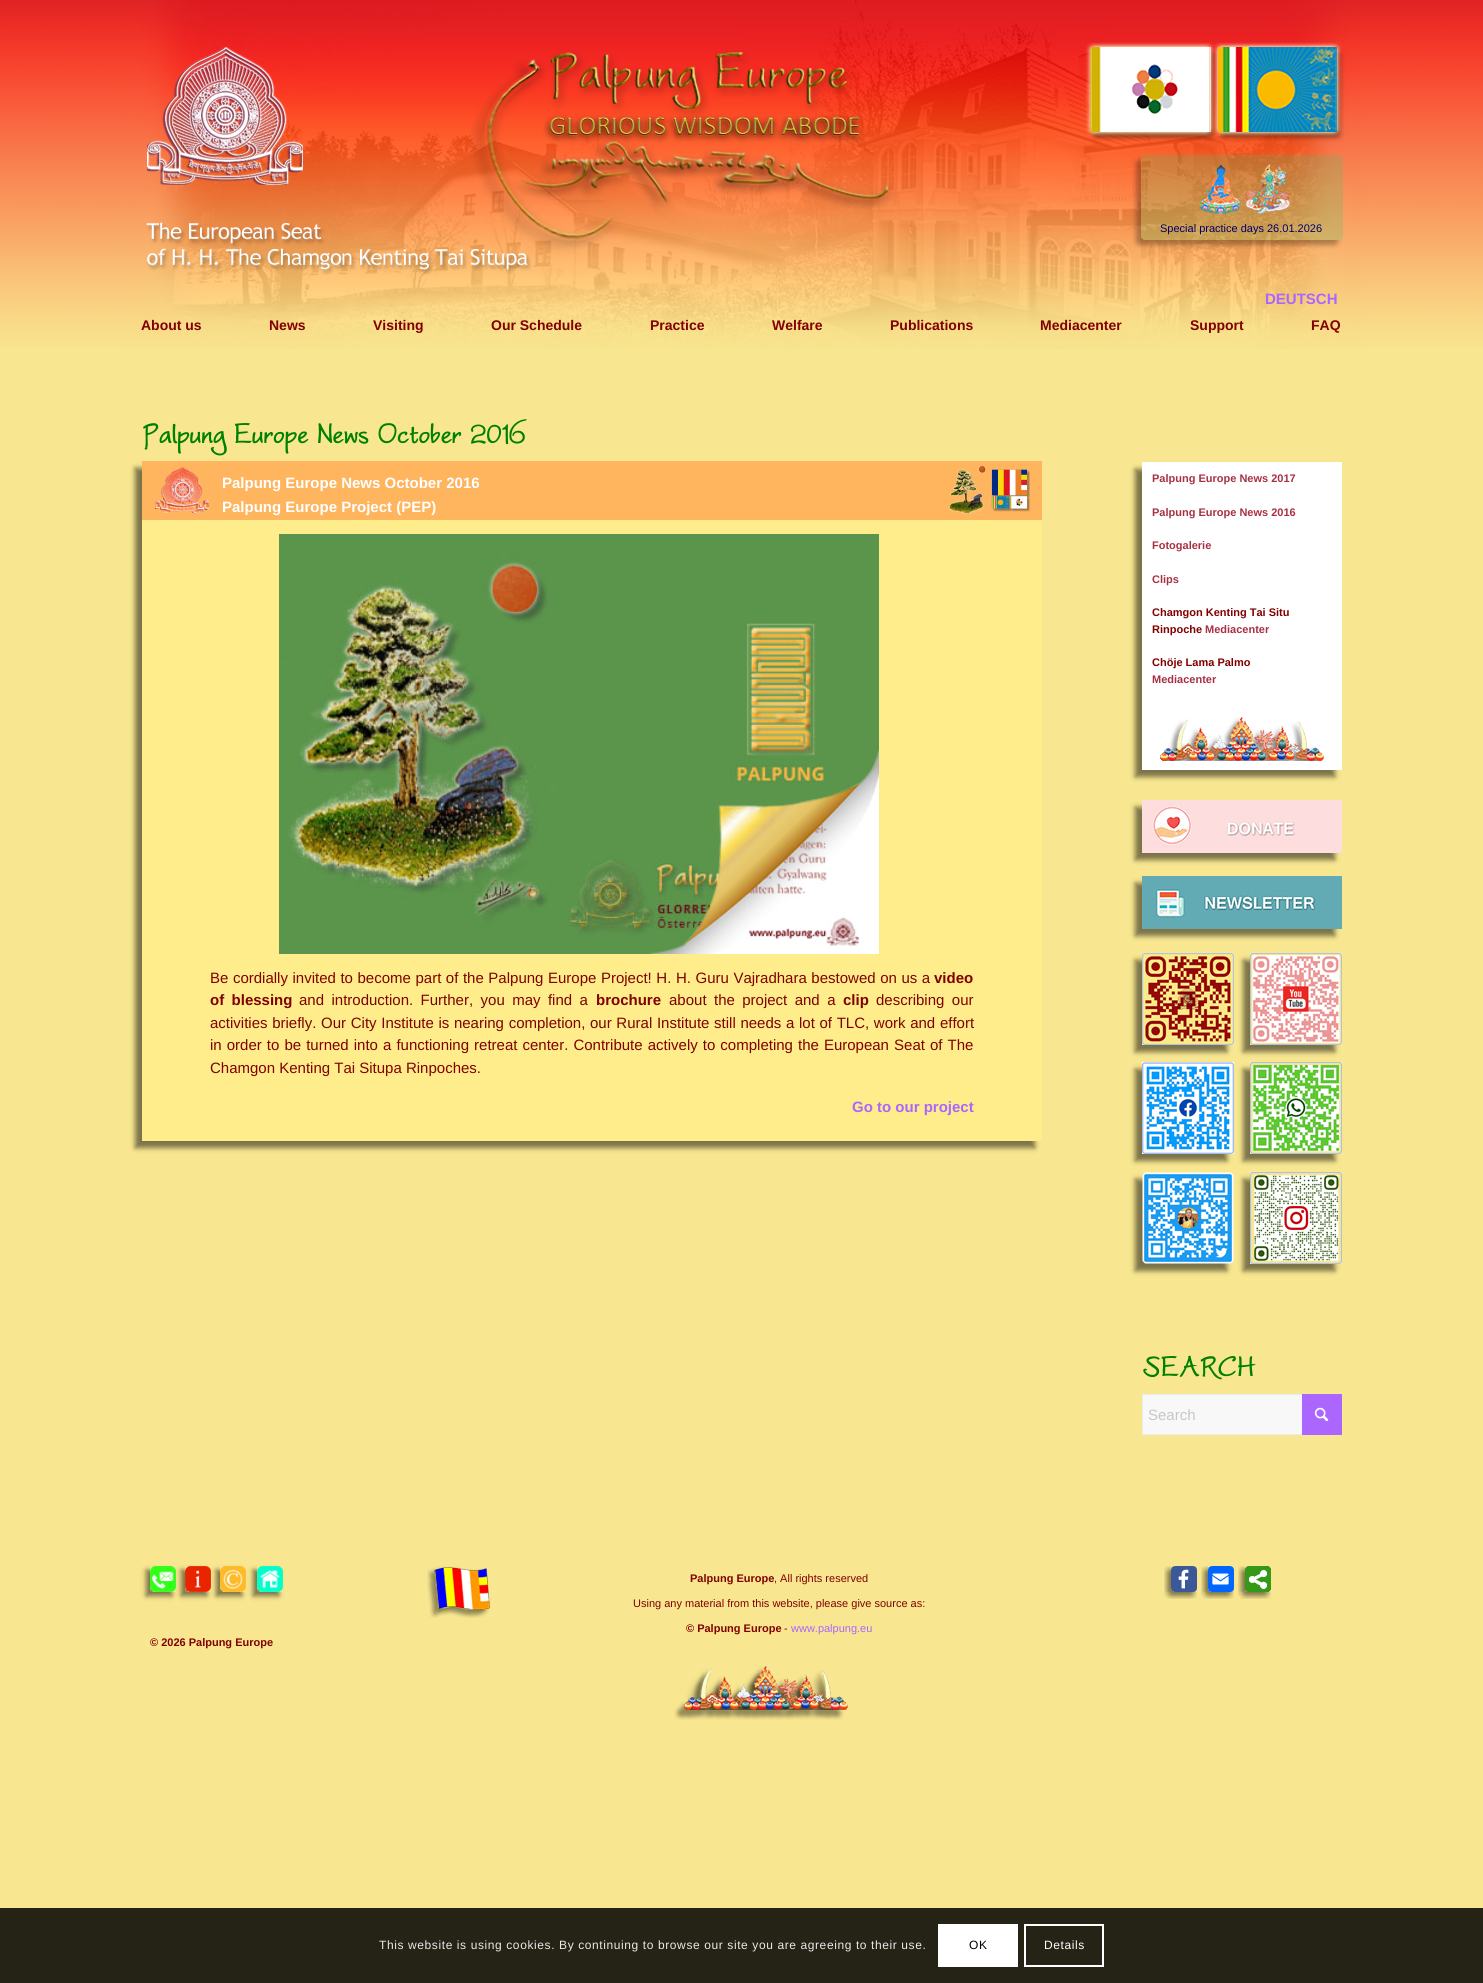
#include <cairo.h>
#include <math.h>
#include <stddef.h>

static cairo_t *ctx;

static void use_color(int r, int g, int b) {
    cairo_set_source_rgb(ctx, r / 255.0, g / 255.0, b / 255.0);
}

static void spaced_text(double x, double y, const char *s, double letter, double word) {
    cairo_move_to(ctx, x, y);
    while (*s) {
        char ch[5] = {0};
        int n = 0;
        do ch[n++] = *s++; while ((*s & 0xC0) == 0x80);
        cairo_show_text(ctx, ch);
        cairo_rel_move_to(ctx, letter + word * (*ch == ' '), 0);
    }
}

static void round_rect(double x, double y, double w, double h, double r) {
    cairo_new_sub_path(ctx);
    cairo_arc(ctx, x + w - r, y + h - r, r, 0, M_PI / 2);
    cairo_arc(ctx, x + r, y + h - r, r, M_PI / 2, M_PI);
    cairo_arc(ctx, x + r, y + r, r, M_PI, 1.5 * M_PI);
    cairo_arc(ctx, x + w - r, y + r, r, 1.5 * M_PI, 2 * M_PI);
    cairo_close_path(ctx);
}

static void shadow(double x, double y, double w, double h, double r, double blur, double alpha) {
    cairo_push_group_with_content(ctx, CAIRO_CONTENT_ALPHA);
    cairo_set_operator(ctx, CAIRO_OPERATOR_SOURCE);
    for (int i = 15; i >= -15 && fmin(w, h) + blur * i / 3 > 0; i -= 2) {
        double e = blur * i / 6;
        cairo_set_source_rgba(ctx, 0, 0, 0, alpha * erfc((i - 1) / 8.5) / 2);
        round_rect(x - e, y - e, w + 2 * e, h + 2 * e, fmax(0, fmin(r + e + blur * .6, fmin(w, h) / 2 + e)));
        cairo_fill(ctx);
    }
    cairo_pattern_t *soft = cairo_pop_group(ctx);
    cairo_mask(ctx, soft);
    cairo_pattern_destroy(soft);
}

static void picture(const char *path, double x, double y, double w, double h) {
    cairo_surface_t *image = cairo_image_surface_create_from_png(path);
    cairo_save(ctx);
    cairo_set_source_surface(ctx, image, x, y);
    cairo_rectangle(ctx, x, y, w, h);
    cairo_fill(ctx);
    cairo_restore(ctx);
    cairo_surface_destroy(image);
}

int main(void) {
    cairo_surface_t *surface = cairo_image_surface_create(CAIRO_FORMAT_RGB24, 1483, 1983);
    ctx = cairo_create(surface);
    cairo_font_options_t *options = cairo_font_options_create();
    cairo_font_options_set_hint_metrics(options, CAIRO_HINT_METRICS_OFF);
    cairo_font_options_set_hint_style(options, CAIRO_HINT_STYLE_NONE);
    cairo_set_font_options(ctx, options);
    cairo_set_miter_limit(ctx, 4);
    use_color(248, 231, 144);
    cairo_paint(ctx);
    picture("img1.png", 0, 0, 1483, 348);
    picture("img2.png", 122, 0, 1240, 349);
    cairo_save(ctx);
    cairo_set_fill_rule(ctx, CAIRO_FILL_RULE_EVEN_ODD);
    cairo_new_path(ctx);
    cairo_move_to(ctx, 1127, 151);
    cairo_line_to(ctx, 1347, 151);
    cairo_line_to(ctx, 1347, 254);
    cairo_line_to(ctx, 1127, 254);
    cairo_close_path(ctx);
    cairo_move_to(ctx, 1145, 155);
    cairo_line_to(ctx, 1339, 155);
    cairo_curve_to(ctx, 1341, 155, 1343, 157, 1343, 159);
    cairo_line_to(ctx, 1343, 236);
    cairo_curve_to(ctx, 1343, 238, 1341, 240, 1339, 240);
    cairo_line_to(ctx, 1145, 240);
    cairo_curve_to(ctx, 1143, 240, 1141, 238, 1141, 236);
    cairo_line_to(ctx, 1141, 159);
    cairo_curve_to(ctx, 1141, 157, 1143, 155, 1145, 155);
    cairo_close_path(ctx);
    cairo_clip(ctx);
    use_color(0, 0, 0);
    shadow(1136, 160, 202, 85, 4, 2.5, 0.3);
    cairo_restore(ctx);
    cairo_set_source_rgba(ctx, 0.196, 0.784, 0.392, 0.2);
    round_rect(1141, 155, 202, 85, 4);
    cairo_fill(ctx);
    picture("img3.png", 1199, 164, 42, 50);
    picture("img4.png", 1243, 164, 49, 50);
    cairo_select_font_face(ctx, "Liberation Sans", CAIRO_FONT_SLANT_NORMAL, CAIRO_FONT_WEIGHT_NORMAL);
    cairo_set_font_size(ctx, 11);
    use_color(0, 0, 102);
    cairo_move_to(ctx, 1160, 232);
    cairo_show_text(ctx, "Special practice days 26.01.2026");
    cairo_select_font_face(ctx, "Liberation Sans", CAIRO_FONT_SLANT_NORMAL, CAIRO_FONT_WEIGHT_BOLD);
    cairo_set_font_size(ctx, 15);
    use_color(171, 102, 255);
    cairo_move_to(ctx, 1265, 304);
    cairo_show_text(ctx, "DEUTSCH");
    cairo_set_font_size(ctx, 14);
    use_color(129, 0, 0);
    cairo_move_to(ctx, 141, 330);
    cairo_show_text(ctx, "About us");
    cairo_move_to(ctx, 269, 330);
    cairo_show_text(ctx, "News");
    cairo_move_to(ctx, 373, 330);
    cairo_show_text(ctx, "Visiting");
    cairo_move_to(ctx, 491, 330);
    cairo_show_text(ctx, "Our Schedule");
    cairo_move_to(ctx, 650, 330);
    cairo_show_text(ctx, "Practice");
    cairo_move_to(ctx, 772, 330);
    cairo_show_text(ctx, "Welfare");
    cairo_move_to(ctx, 890, 330);
    cairo_show_text(ctx, "Publications");
    cairo_move_to(ctx, 1040, 330);
    cairo_show_text(ctx, "Mediacenter");
    cairo_move_to(ctx, 1190, 330);
    cairo_show_text(ctx, "Support");
    cairo_move_to(ctx, 1311, 330);
    cairo_show_text(ctx, "FAQ");
    cairo_select_font_face(ctx, "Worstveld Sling", CAIRO_FONT_SLANT_NORMAL, CAIRO_FONT_WEIGHT_BOLD);
    cairo_set_font_size(ctx, 36);
    use_color(0, 128, 0);
    cairo_move_to(ctx, 142, 443);
    cairo_show_text(ctx, "Palpung Europe News October 2016");
    use_color(0, 0, 0);
    shadow(135, 468, 900, 680, 0, 2.5, 0.5);
    use_color(255, 237, 139);
    cairo_rectangle(ctx, 142, 520, 900, 621);
    cairo_fill(ctx);
    use_color(255, 180, 94);
    cairo_rectangle(ctx, 142, 461, 900, 59);
    cairo_fill(ctx);
    picture("img5.png", 155, 467, 55, 48);
    cairo_select_font_face(ctx, "Liberation Sans", CAIRO_FONT_SLANT_NORMAL, CAIRO_FONT_WEIGHT_BOLD);
    cairo_set_font_size(ctx, 15);
    use_color(255, 255, 255);
    cairo_move_to(ctx, 222, 488);
    cairo_show_text(ctx, "Palpung Europe News October 2016");
    cairo_move_to(ctx, 222, 512);
    cairo_show_text(ctx, "Palpung Europe Project (PEP)");
    picture("img6.png", 948, 466, 82, 49);
    picture("img7.png", 279, 534, 600, 420);
    cairo_select_font_face(ctx, "Liberation Sans", CAIRO_FONT_SLANT_NORMAL, CAIRO_FONT_WEIGHT_NORMAL);
    use_color(129, 0, 0);
    spaced_text(210, 983, "Be cordially invited to become part of the Palpung Europe Project! H. H. Guru Vajradhara bestowed on us a", 0, 0.4);
    cairo_select_font_face(ctx, "Liberation Sans", CAIRO_FONT_SLANT_NORMAL, CAIRO_FONT_WEIGHT_BOLD);
    cairo_move_to(ctx, 934, 983);
    cairo_show_text(ctx, "video");
    spaced_text(210, 1005, "of blessing", 0, 3.25);
    cairo_select_font_face(ctx, "Liberation Sans", CAIRO_FONT_SLANT_NORMAL, CAIRO_FONT_WEIGHT_NORMAL);
    spaced_text(299, 1005, "and introduction. Further, you may find a", 0, 3.25);
    cairo_select_font_face(ctx, "Liberation Sans", CAIRO_FONT_SLANT_NORMAL, CAIRO_FONT_WEIGHT_BOLD);
    cairo_move_to(ctx, 596, 1005);
    cairo_show_text(ctx, "brochure");
    cairo_select_font_face(ctx, "Liberation Sans", CAIRO_FONT_SLANT_NORMAL, CAIRO_FONT_WEIGHT_NORMAL);
    spaced_text(669, 1005, "about the project and a", 0, 3.25);
    cairo_select_font_face(ctx, "Liberation Sans", CAIRO_FONT_SLANT_NORMAL, CAIRO_FONT_WEIGHT_BOLD);
    cairo_move_to(ctx, 843, 1005);
    cairo_show_text(ctx, "clip");
    cairo_select_font_face(ctx, "Liberation Sans", CAIRO_FONT_SLANT_NORMAL, CAIRO_FONT_WEIGHT_NORMAL);
    spaced_text(876, 1005, "describing our", 0, 3.25);
    spaced_text(210, 1028, "activities briefly. Our City Institute is nearing completion, our Rural Institute still needs a lot of TLC, work and effort", 0, 0.5);
    spaced_text(210, 1050, "in order to be turned into a functioning retreat center. Contribute actively to completing the European Seat of The", 0, 0.9);
    cairo_move_to(ctx, 210, 1073);
    cairo_show_text(ctx, "Chamgon Kenting Tai Situpa Rinpoches.");
    cairo_select_font_face(ctx, "Liberation Sans", CAIRO_FONT_SLANT_NORMAL, CAIRO_FONT_WEIGHT_BOLD);
    use_color(171, 102, 255);
    cairo_move_to(ctx, 852, 1112);
    cairo_show_text(ctx, "Go to our project");
    use_color(0, 0, 0);
    shadow(1135, 469, 200, 308, 0, 2.5, 0.5);
    use_color(255, 255, 255);
    cairo_rectangle(ctx, 1142, 462, 200, 308);
    cairo_fill(ctx);
    cairo_set_font_size(ctx, 11);
    use_color(168, 48, 67);
    cairo_move_to(ctx, 1152, 482);
    cairo_show_text(ctx, "Palpung Europe News 2017");
    cairo_move_to(ctx, 1152, 516);
    cairo_show_text(ctx, "Palpung Europe News 2016");
    cairo_move_to(ctx, 1152, 549);
    cairo_show_text(ctx, "Fotogalerie");
    cairo_move_to(ctx, 1152, 583);
    cairo_show_text(ctx, "Clips");
    use_color(129, 0, 0);
    cairo_move_to(ctx, 1152, 616);
    cairo_show_text(ctx, "Chamgon Kenting Tai Situ");
    cairo_move_to(ctx, 1152, 633);
    cairo_show_text(ctx, "Rinpoche");
    use_color(168, 48, 67);
    cairo_move_to(ctx, 1205, 633);
    cairo_show_text(ctx, "Mediacenter");
    use_color(129, 0, 0);
    cairo_move_to(ctx, 1152, 666);
    cairo_show_text(ctx, "Chöje Lama Palmo");
    use_color(168, 48, 67);
    cairo_move_to(ctx, 1152, 683);
    cairo_show_text(ctx, "Mediacenter");
    picture("img8.png", 1160, 717, 164, 44);
    use_color(0, 0, 0);
    shadow(1135, 807, 200, 53, 0, 2.5, 0.5);
    picture("img9.png", 1142, 800, 200, 53);
    shadow(1135, 883, 200, 53, 0, 2.5, 0.5);
    picture("img10.png", 1142, 876, 200, 53);
    cairo_save(ctx);
    cairo_set_fill_rule(ctx, CAIRO_FILL_RULE_EVEN_ODD);
    cairo_new_path(ctx);
    cairo_move_to(ctx, 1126, 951);
    cairo_line_to(ctx, 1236, 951);
    cairo_line_to(ctx, 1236, 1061);
    cairo_line_to(ctx, 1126, 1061);
    cairo_close_path(ctx);
    cairo_move_to(ctx, 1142, 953);
    cairo_line_to(ctx, 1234, 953);
    cairo_line_to(ctx, 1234, 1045);
    cairo_line_to(ctx, 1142, 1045);
    cairo_close_path(ctx);
    cairo_clip(ctx);
    shadow(1135, 960, 92, 92, 0, 2.5, 0.5);
    cairo_restore(ctx);
    picture("img11.png", 1142, 953, 92, 92);
    cairo_save(ctx);
    cairo_set_fill_rule(ctx, CAIRO_FILL_RULE_EVEN_ODD);
    cairo_new_path(ctx);
    cairo_move_to(ctx, 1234, 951);
    cairo_line_to(ctx, 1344, 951);
    cairo_line_to(ctx, 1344, 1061);
    cairo_line_to(ctx, 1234, 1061);
    cairo_close_path(ctx);
    cairo_move_to(ctx, 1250, 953);
    cairo_line_to(ctx, 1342, 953);
    cairo_line_to(ctx, 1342, 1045);
    cairo_line_to(ctx, 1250, 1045);
    cairo_close_path(ctx);
    cairo_clip(ctx);
    shadow(1243, 960, 92, 92, 0, 2.5, 0.5);
    cairo_restore(ctx);
    picture("img12.png", 1250, 953, 92, 92);
    shadow(1135, 1069, 92, 92, 0, 2.5, 0.5);
    picture("img13.png", 1142, 1062, 92, 92);
    cairo_save(ctx);
    cairo_set_fill_rule(ctx, CAIRO_FILL_RULE_EVEN_ODD);
    cairo_new_path(ctx);
    cairo_move_to(ctx, 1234, 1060);
    cairo_line_to(ctx, 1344, 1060);
    cairo_line_to(ctx, 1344, 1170);
    cairo_line_to(ctx, 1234, 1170);
    cairo_close_path(ctx);
    cairo_move_to(ctx, 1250, 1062);
    cairo_line_to(ctx, 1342, 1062);
    cairo_line_to(ctx, 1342, 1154);
    cairo_line_to(ctx, 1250, 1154);
    cairo_close_path(ctx);
    cairo_clip(ctx);
    shadow(1243, 1069, 92, 92, 0, 2.5, 0.5);
    cairo_restore(ctx);
    picture("img14.png", 1250, 1062, 92, 92);
    shadow(1135, 1179, 92, 92, 0, 2.5, 0.5);
    picture("img15.png", 1142, 1172, 92, 92);
    cairo_save(ctx);
    cairo_set_fill_rule(ctx, CAIRO_FILL_RULE_EVEN_ODD);
    cairo_new_path(ctx);
    cairo_move_to(ctx, 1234, 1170);
    cairo_line_to(ctx, 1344, 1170);
    cairo_line_to(ctx, 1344, 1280);
    cairo_line_to(ctx, 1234, 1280);
    cairo_close_path(ctx);
    cairo_move_to(ctx, 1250, 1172);
    cairo_line_to(ctx, 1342, 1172);
    cairo_line_to(ctx, 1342, 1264);
    cairo_line_to(ctx, 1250, 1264);
    cairo_close_path(ctx);
    cairo_clip(ctx);
    shadow(1243, 1179, 92, 92, 0, 2.5, 0.5);
    cairo_restore(ctx);
    picture("img16.png", 1250, 1172, 92, 92);
    cairo_select_font_face(ctx, "Worstveld Sling", CAIRO_FONT_SLANT_NORMAL, CAIRO_FONT_WEIGHT_BOLD);
    cairo_set_font_size(ctx, 36);
    use_color(0, 128, 0);
    spaced_text(1142, 1376, "SEARCH", 1, 0);
    use_color(248, 248, 248);
    cairo_rectangle(ctx, 1143, 1395, 159, 39);
    cairo_fill(ctx);
    cairo_rectangle(ctx, 1142.5, 1394.5, 199, 40);
    use_color(235, 235, 235);
    cairo_set_line_width(ctx, 1);
    cairo_stroke(ctx);
    use_color(171, 102, 255);
    cairo_rectangle(ctx, 1302, 1394, 40, 41);
    cairo_fill(ctx);
    cairo_select_font_face(ctx, "Liberation Sans", CAIRO_FONT_SLANT_NORMAL, CAIRO_FONT_WEIGHT_NORMAL);
    cairo_set_font_size(ctx, 15);
    use_color(199, 199, 199);
    cairo_move_to(ctx, 1148, 1420);
    cairo_show_text(ctx, "Search");
    picture("img17.png", 1314, 1407, 15, 15);
    picture("img18.png", 427, 1566, 63, 52);
    cairo_select_font_face(ctx, "Liberation Sans", CAIRO_FONT_SLANT_NORMAL, CAIRO_FONT_WEIGHT_BOLD);
    cairo_set_font_size(ctx, 11);
    use_color(129, 0, 0);
    cairo_move_to(ctx, 690, 1582);
    cairo_show_text(ctx, "Palpung Europe");
    cairo_select_font_face(ctx, "Liberation Sans", CAIRO_FONT_SLANT_NORMAL, CAIRO_FONT_WEIGHT_NORMAL);
    cairo_move_to(ctx, 774, 1582);
    cairo_show_text(ctx, ", All rights reserved");
    cairo_move_to(ctx, 633, 1607);
    cairo_show_text(ctx, "Using any material from this website, please give source as:");
    cairo_select_font_face(ctx, "Liberation Sans", CAIRO_FONT_SLANT_NORMAL, CAIRO_FONT_WEIGHT_BOLD);
    cairo_move_to(ctx, 686, 1632);
    cairo_show_text(ctx, "© Palpung Europe");
    cairo_select_font_face(ctx, "Liberation Sans", CAIRO_FONT_SLANT_NORMAL, CAIRO_FONT_WEIGHT_NORMAL);
    cairo_move_to(ctx, 784, 1632);
    cairo_show_text(ctx, "-");
    use_color(171, 102, 255);
    cairo_move_to(ctx, 791, 1632);
    cairo_show_text(ctx, "www.palpung.eu");
    picture("img19.png", 674, 1666, 174, 54);
    picture("img20.png", 1164, 1566, 33, 33);
    picture("img21.png", 1201, 1566, 33, 33);
    picture("img22.png", 1238, 1566, 33, 33);
    cairo_save(ctx);
    cairo_set_fill_rule(ctx, CAIRO_FILL_RULE_EVEN_ODD);
    cairo_new_path(ctx);
    cairo_move_to(ctx, 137, 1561);
    cairo_line_to(ctx, 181, 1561);
    cairo_line_to(ctx, 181, 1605);
    cairo_line_to(ctx, 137, 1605);
    cairo_close_path(ctx);
    cairo_move_to(ctx, 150, 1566);
    cairo_line_to(ctx, 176, 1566);
    cairo_line_to(ctx, 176, 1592);
    cairo_line_to(ctx, 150, 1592);
    cairo_close_path(ctx);
    cairo_clip(ctx);
    use_color(0, 0, 0);
    shadow(146, 1570, 26, 26, 0, 2.5, 0.5);
    cairo_restore(ctx);
    picture("img23.png", 150, 1566, 26, 26);
    cairo_save(ctx);
    cairo_set_fill_rule(ctx, CAIRO_FILL_RULE_EVEN_ODD);
    cairo_new_path(ctx);
    cairo_move_to(ctx, 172, 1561);
    cairo_line_to(ctx, 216, 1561);
    cairo_line_to(ctx, 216, 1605);
    cairo_line_to(ctx, 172, 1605);
    cairo_close_path(ctx);
    cairo_move_to(ctx, 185, 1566);
    cairo_line_to(ctx, 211, 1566);
    cairo_line_to(ctx, 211, 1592);
    cairo_line_to(ctx, 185, 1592);
    cairo_close_path(ctx);
    cairo_clip(ctx);
    use_color(0, 0, 0);
    shadow(181, 1570, 26, 26, 0, 2.5, 0.5);
    cairo_restore(ctx);
    picture("img24.png", 185, 1566, 26, 26);
    cairo_save(ctx);
    cairo_set_fill_rule(ctx, CAIRO_FILL_RULE_EVEN_ODD);
    cairo_new_path(ctx);
    cairo_move_to(ctx, 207, 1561);
    cairo_line_to(ctx, 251, 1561);
    cairo_line_to(ctx, 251, 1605);
    cairo_line_to(ctx, 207, 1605);
    cairo_close_path(ctx);
    cairo_move_to(ctx, 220, 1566);
    cairo_line_to(ctx, 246, 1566);
    cairo_line_to(ctx, 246, 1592);
    cairo_line_to(ctx, 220, 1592);
    cairo_close_path(ctx);
    cairo_clip(ctx);
    use_color(0, 0, 0);
    shadow(216, 1570, 26, 26, 0, 2.5, 0.5);
    cairo_restore(ctx);
    picture("img25.png", 220, 1566, 26, 26);
    cairo_save(ctx);
    cairo_set_fill_rule(ctx, CAIRO_FILL_RULE_EVEN_ODD);
    cairo_new_path(ctx);
    cairo_move_to(ctx, 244, 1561);
    cairo_line_to(ctx, 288, 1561);
    cairo_line_to(ctx, 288, 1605);
    cairo_line_to(ctx, 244, 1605);
    cairo_close_path(ctx);
    cairo_move_to(ctx, 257, 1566);
    cairo_line_to(ctx, 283, 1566);
    cairo_line_to(ctx, 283, 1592);
    cairo_line_to(ctx, 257, 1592);
    cairo_close_path(ctx);
    cairo_clip(ctx);
    use_color(0, 0, 0);
    shadow(253, 1570, 26, 26, 0, 2.5, 0.5);
    cairo_restore(ctx);
    picture("img26.png", 257, 1566, 26, 26);
    cairo_select_font_face(ctx, "Liberation Sans", CAIRO_FONT_SLANT_NORMAL, CAIRO_FONT_WEIGHT_BOLD);
    use_color(129, 0, 0);
    cairo_move_to(ctx, 150, 1646);
    cairo_show_text(ctx, "© 2026 Palpung Europe");
    use_color(37, 35, 22);
    cairo_rectangle(ctx, 0, 1908, 1483, 75);
    cairo_fill(ctx);
    cairo_select_font_face(ctx, "Liberation Sans", CAIRO_FONT_SLANT_NORMAL, CAIRO_FONT_WEIGHT_NORMAL);
    cairo_set_font_size(ctx, 12);
    use_color(233, 233, 232);
    spaced_text(379, 1949, "This website is using cookies. By continuing to browse our site you are agreeing to their use.", 0.6, 0);
    use_color(255, 255, 255);
    cairo_rectangle(ctx, 938, 1924, 80, 43);
    cairo_fill(ctx);
    use_color(0, 0, 0);
    spaced_text(969, 1949, "OK", 0.6, 0);
    cairo_rectangle(ctx, 1025, 1925, 78, 41);
    use_color(255, 255, 255);
    cairo_set_line_width(ctx, 2);
    cairo_stroke(ctx);
    spaced_text(1044, 1949, "Details", 0.6, 0);
    cairo_surface_write_to_png(surface, "result.png");
    cairo_font_options_destroy(options);
    cairo_destroy(ctx);
    cairo_surface_destroy(surface);
    return 0;
}
